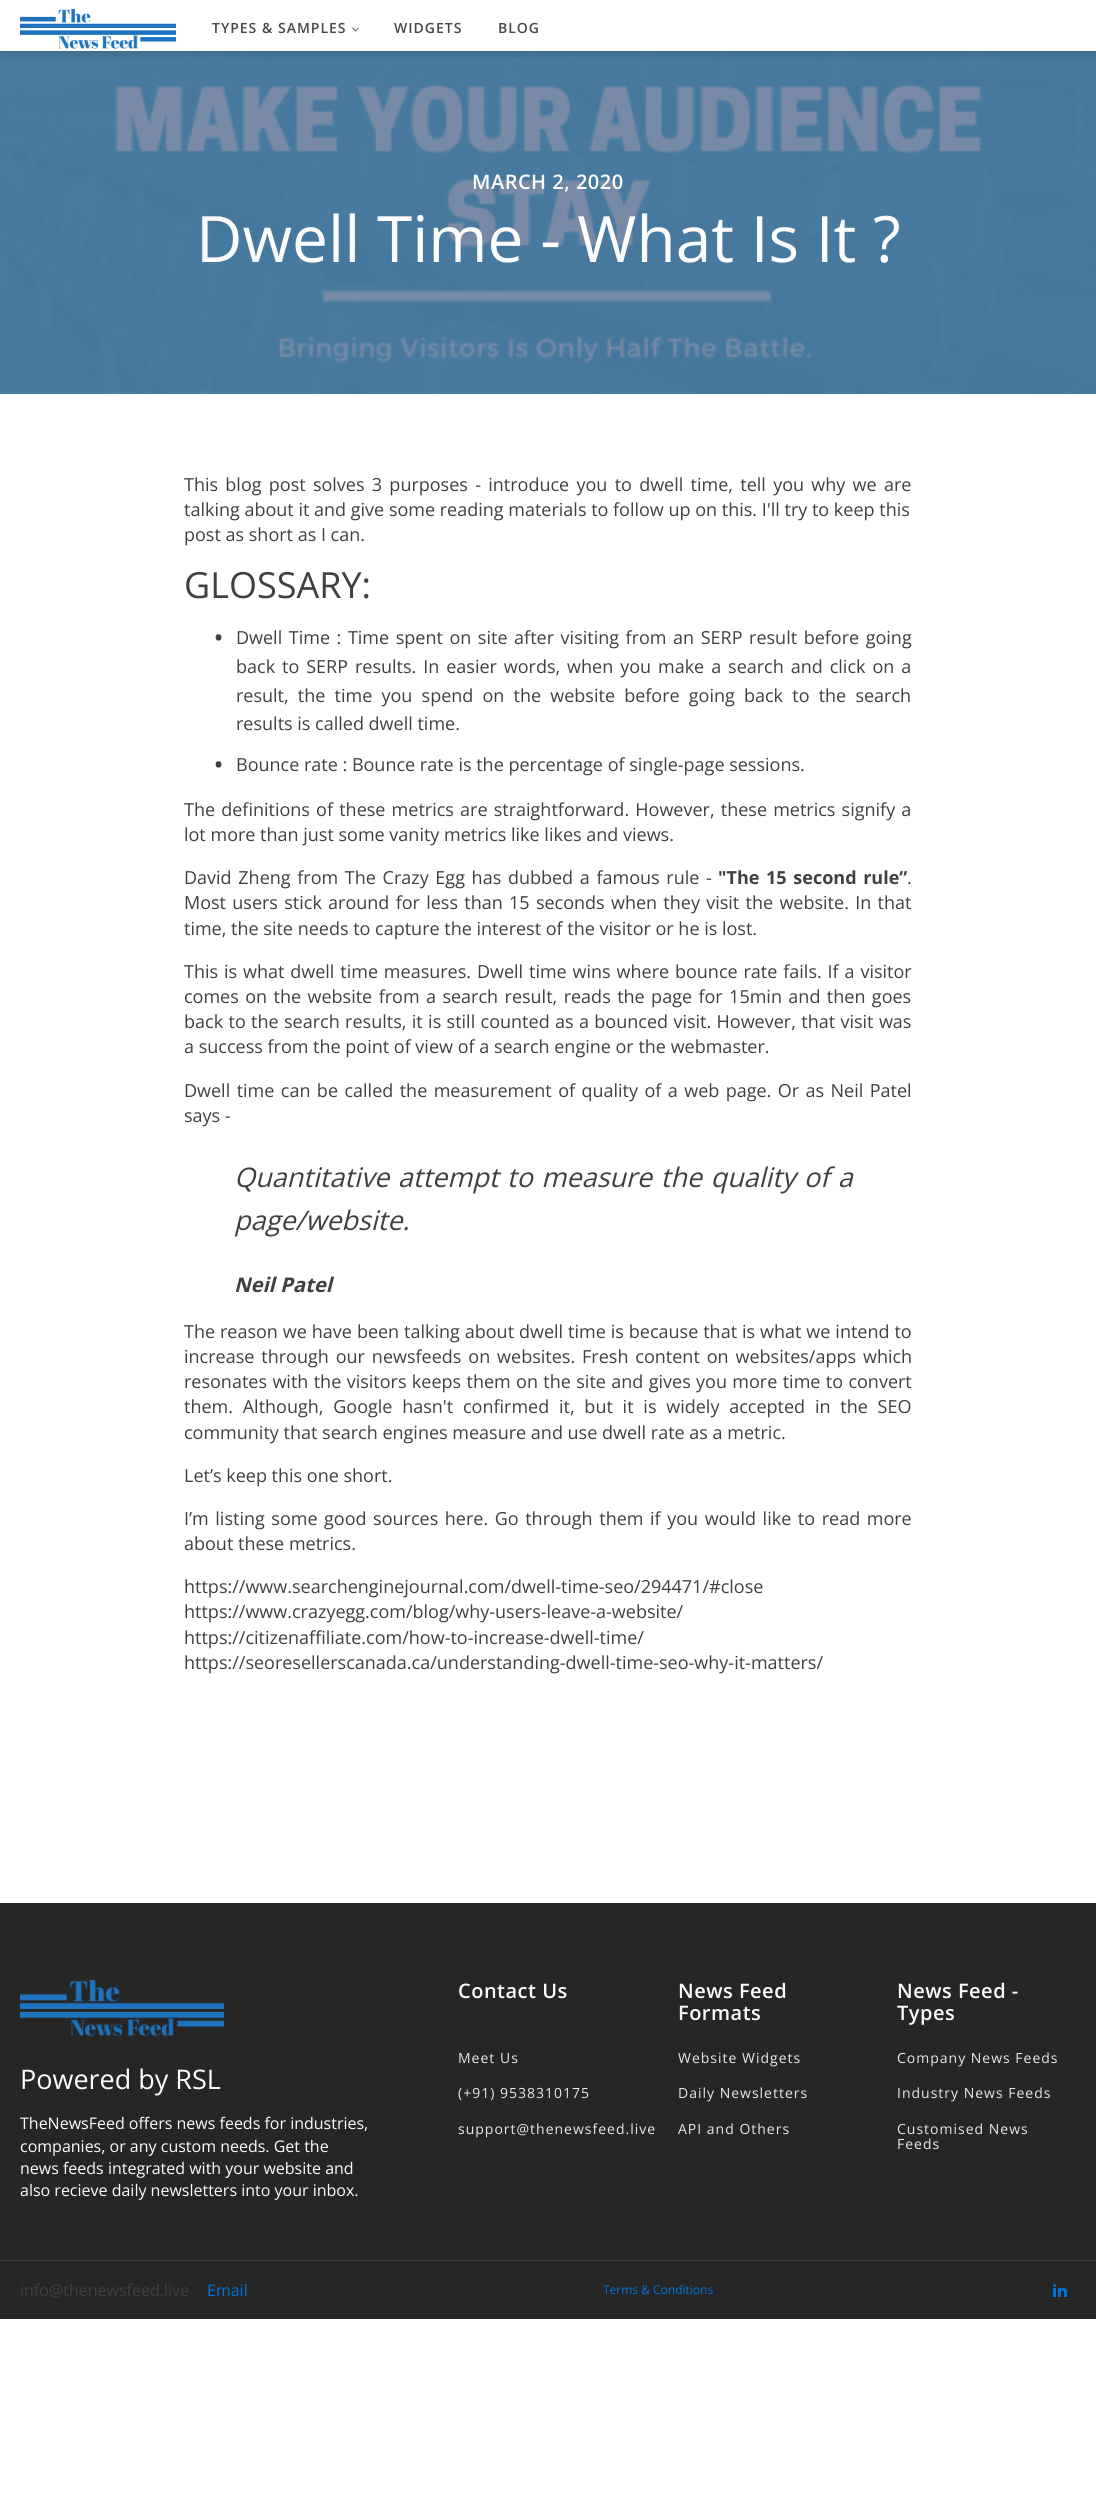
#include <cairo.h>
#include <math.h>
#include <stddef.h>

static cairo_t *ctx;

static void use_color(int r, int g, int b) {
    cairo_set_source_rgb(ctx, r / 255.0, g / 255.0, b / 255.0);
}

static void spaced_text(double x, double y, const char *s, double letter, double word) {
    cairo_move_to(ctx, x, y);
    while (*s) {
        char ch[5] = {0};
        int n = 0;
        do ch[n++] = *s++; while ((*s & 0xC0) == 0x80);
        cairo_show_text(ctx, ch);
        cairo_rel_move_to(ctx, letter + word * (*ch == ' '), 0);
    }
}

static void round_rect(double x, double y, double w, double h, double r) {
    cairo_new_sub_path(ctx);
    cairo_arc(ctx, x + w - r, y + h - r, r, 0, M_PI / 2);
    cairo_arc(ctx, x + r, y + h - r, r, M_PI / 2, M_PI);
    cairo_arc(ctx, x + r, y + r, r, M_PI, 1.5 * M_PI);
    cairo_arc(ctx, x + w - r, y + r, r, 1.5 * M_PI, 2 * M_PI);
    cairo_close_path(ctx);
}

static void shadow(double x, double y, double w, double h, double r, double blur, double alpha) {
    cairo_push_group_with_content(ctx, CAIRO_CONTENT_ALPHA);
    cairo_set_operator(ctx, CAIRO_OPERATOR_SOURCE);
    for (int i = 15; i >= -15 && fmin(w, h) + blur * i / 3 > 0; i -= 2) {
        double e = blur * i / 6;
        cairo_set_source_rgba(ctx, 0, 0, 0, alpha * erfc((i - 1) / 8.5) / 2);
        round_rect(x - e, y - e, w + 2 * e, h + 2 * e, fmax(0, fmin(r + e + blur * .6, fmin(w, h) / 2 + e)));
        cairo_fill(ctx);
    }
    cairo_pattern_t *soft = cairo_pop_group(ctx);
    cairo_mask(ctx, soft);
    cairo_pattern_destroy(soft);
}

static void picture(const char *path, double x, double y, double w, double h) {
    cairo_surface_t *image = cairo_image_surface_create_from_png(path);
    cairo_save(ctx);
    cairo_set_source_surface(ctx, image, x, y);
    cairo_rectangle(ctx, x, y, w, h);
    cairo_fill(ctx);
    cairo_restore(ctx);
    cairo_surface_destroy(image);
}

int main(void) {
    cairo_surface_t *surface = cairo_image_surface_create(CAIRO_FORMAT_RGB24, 1096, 2509);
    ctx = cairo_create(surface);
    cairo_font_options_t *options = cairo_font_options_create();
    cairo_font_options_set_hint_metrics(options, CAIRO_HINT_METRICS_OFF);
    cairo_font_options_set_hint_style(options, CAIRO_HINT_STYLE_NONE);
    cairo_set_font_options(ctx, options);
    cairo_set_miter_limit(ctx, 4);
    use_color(255, 255, 255);
    cairo_paint(ctx);
    picture("img2.png", 0, 51, 1096, 343);
    cairo_save(ctx);
    cairo_rectangle(ctx, 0, 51, 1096, 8);
    cairo_clip(ctx);
    use_color(0, 0, 0);
    shadow(0, 2, 1096, 51, 0, 4.5, 0.2);
    cairo_restore(ctx);
    picture("img1.png", 20, 8, 156, 41);
    cairo_select_font_face(ctx, "Open Sans SemiBold", CAIRO_FONT_SLANT_NORMAL, CAIRO_FONT_WEIGHT_NORMAL);
    cairo_set_font_size(ctx, 14);
    use_color(71, 71, 71);
    spaced_text(212, 33, "TYPES & SAMPLES", 1, 0);
    cairo_new_path(ctx);
    cairo_move_to(ctx, 359, 28);
    cairo_line_to(ctx, 355.5, 31.5);
    cairo_line_to(ctx, 355, 31);
    cairo_line_to(ctx, 358.5, 27.5);
    cairo_close_path(ctx);
    cairo_fill(ctx);
    cairo_new_path(ctx);
    cairo_move_to(ctx, 356, 31);
    cairo_line_to(ctx, 355.5, 31.5);
    cairo_line_to(ctx, 352, 28);
    cairo_line_to(ctx, 353, 27.5);
    cairo_close_path(ctx);
    cairo_fill(ctx);
    spaced_text(394, 33, "WIDGETS", 1, 0);
    spaced_text(498, 33, "BLOG", 1, 0);
    cairo_set_font_size(ctx, 20);
    use_color(252, 252, 252);
    spaced_text(472, 189, "MARCH 2, 2020", 0.5, 0);
    cairo_select_font_face(ctx, "Open Sans", CAIRO_FONT_SLANT_NORMAL, CAIRO_FONT_WEIGHT_NORMAL);
    cairo_set_font_size(ctx, 64);
    cairo_move_to(ctx, 196, 262);
    cairo_show_text(ctx, "Dwell Time - What Is It ?");
    cairo_set_font_size(ctx, 18);
    use_color(64, 64, 64);
    spaced_text(184, 491, "This blog post solves 3 purposes - introduce you to dwell time, tell you why we are", 0, 2.6);
    cairo_move_to(ctx, 184, 516);
    cairo_show_text(ctx, "talking about it and give some reading materials to follow up on this. I'll try to keep this");
    cairo_move_to(ctx, 184, 541);
    cairo_show_text(ctx, "post as short as I can.");
    cairo_set_font_size(ctx, 36);
    cairo_move_to(ctx, 184, 598);
    cairo_show_text(ctx, "GLOSSARY:");
    cairo_select_font_face(ctx, "Open Sans ExtraBold", CAIRO_FONT_SLANT_NORMAL, CAIRO_FONT_WEIGHT_NORMAL);
    cairo_set_font_size(ctx, 18);
    cairo_move_to(ctx, 215, 644);
    cairo_show_text(ctx, "•");
    cairo_select_font_face(ctx, "Open Sans", CAIRO_FONT_SLANT_NORMAL, CAIRO_FONT_WEIGHT_NORMAL);
    spaced_text(236, 644, "Dwell Time : Time spent on site after visiting from an SERP result before going", 0, 1.9);
    spaced_text(236, 673, "back to SERP results. In easier words, when you make a search and click on a", 0, 2.25);
    spaced_text(236, 702, "result, the time you spend on the website before going back to the search", 0, 4.5);
    cairo_move_to(ctx, 236, 730);
    cairo_show_text(ctx, "results is called dwell time.");
    cairo_select_font_face(ctx, "Open Sans ExtraBold", CAIRO_FONT_SLANT_NORMAL, CAIRO_FONT_WEIGHT_NORMAL);
    cairo_move_to(ctx, 215, 771);
    cairo_show_text(ctx, "•");
    cairo_select_font_face(ctx, "Open Sans", CAIRO_FONT_SLANT_NORMAL, CAIRO_FONT_WEIGHT_NORMAL);
    cairo_move_to(ctx, 236, 771);
    cairo_show_text(ctx, "Bounce rate : Bounce rate is the percentage of single-page sessions.");
    spaced_text(184, 816, "The definitions of these metrics are straightforward. However, these metrics signify a", 0, 1.5);
    cairo_move_to(ctx, 184, 841);
    cairo_show_text(ctx, "lot more than just some vanity metrics like likes and views.");
    spaced_text(184, 884, "David Zheng from The Crazy Egg has dubbed a famous rule -", 0, 2);
    cairo_select_font_face(ctx, "Open Sans", CAIRO_FONT_SLANT_NORMAL, CAIRO_FONT_WEIGHT_BOLD);
    spaced_text(718, 884, "\"The 15 second rule”", 0, 2);
    cairo_select_font_face(ctx, "Open Sans", CAIRO_FONT_SLANT_NORMAL, CAIRO_FONT_WEIGHT_NORMAL);
    cairo_move_to(ctx, 907, 884);
    cairo_show_text(ctx, ".");
    spaced_text(184, 909, "Most users stick around for less than 15 seconds when they visit the website. In that", 0, 1.6);
    cairo_move_to(ctx, 184, 935);
    cairo_show_text(ctx, "time, the site needs to capture the interest of the visitor or he is lost.");
    spaced_text(184, 978, "This is what dwell time measures. Dwell time wins where bounce rate fails. If a visitor", 0, 1.2);
    spaced_text(184, 1003, "comes on the website from a search result, reads the page for 15min and then goes", 0, 1.75);
    spaced_text(184, 1028, "back to the search results, it is still counted as a bounced visit. However, that visit was", 0, 0.7);
    cairo_move_to(ctx, 184, 1053);
    cairo_show_text(ctx, "a success from the point of view of a search engine or the webmaster.");
    spaced_text(184, 1097, "Dwell time can be called the measurement of quality of a web page. Or as Neil Patel", 0, 1.75);
    cairo_move_to(ctx, 184, 1122);
    cairo_show_text(ctx, "says -");
    cairo_select_font_face(ctx, "Open Sans", CAIRO_FONT_SLANT_ITALIC, CAIRO_FONT_WEIGHT_NORMAL);
    cairo_set_font_size(ctx, 27);
    spaced_text(234, 1187, "Quantitative attempt to measure the quality of a", 0, 1.5);
    cairo_move_to(ctx, 234, 1230);
    cairo_show_text(ctx, "page/website.");
    cairo_select_font_face(ctx, "Open Sans", CAIRO_FONT_SLANT_ITALIC, CAIRO_FONT_WEIGHT_BOLD);
    cairo_set_font_size(ctx, 20.25);
    cairo_move_to(ctx, 234, 1292);
    cairo_show_text(ctx, "Neil Patel");
    cairo_select_font_face(ctx, "Open Sans", CAIRO_FONT_SLANT_NORMAL, CAIRO_FONT_WEIGHT_NORMAL);
    cairo_set_font_size(ctx, 18);
    spaced_text(184, 1338, "The reason we have been talking about dwell time is because that is what we intend to", 0, 0.25);
    spaced_text(184, 1363, "increase through our newsfeeds on websites. Fresh content on websites/apps which", 0, 2.25);
    spaced_text(184, 1388, "resonates with the visitors keeps them on the site and gives you more time to convert", 0, 0.7);
    spaced_text(184, 1413, "them. Although, Google hasn't confirmed it, but it is widely accepted in the SEO", 0, 5.1);
    cairo_move_to(ctx, 184, 1439);
    cairo_show_text(ctx, "community that search engines measure and use dwell rate as a metric.");
    cairo_move_to(ctx, 184, 1482);
    cairo_show_text(ctx, "Let’s keep this one short.");
    spaced_text(184, 1525, "I’m listing some good sources here. Go through them if you would like to read more", 0, 1.9);
    cairo_move_to(ctx, 184, 1550);
    cairo_show_text(ctx, "about these metrics.");
    cairo_move_to(ctx, 184, 1593);
    cairo_show_text(ctx, "https://www.searchenginejournal.com/dwell-time-seo/294471/#close");
    cairo_move_to(ctx, 184, 1618);
    cairo_show_text(ctx, "https://www.crazyegg.com/blog/why-users-leave-a-website/");
    cairo_move_to(ctx, 184, 1644);
    cairo_show_text(ctx, "https://citizenaffiliate.com/how-to-increase-dwell-time/");
    cairo_move_to(ctx, 184, 1669);
    cairo_show_text(ctx, "https://seoresellerscanada.ca/understanding-dwell-time-seo-why-it-matters/");
    use_color(38, 38, 38);
    cairo_rectangle(ctx, 0, 1903, 1096, 416);
    cairo_fill(ctx);
    use_color(64, 64, 64);
    cairo_rectangle(ctx, 0, 2260, 1096, 1);
    cairo_fill(ctx);
    picture("img3.png", 20, 1980, 204, 57);
    cairo_set_font_size(ctx, 27);
    use_color(252, 252, 252);
    cairo_move_to(ctx, 20, 2089);
    cairo_show_text(ctx, "Powered by RSL");
    cairo_set_font_size(ctx, 16);
    cairo_move_to(ctx, 20, 2129);
    cairo_show_text(ctx, "TheNewsFeed offers news feeds for industries,");
    cairo_move_to(ctx, 20, 2152);
    cairo_show_text(ctx, "companies, or any custom needs. Get the");
    cairo_move_to(ctx, 20, 2174);
    cairo_show_text(ctx, "news feeds integrated with your website and");
    cairo_move_to(ctx, 20, 2196);
    cairo_show_text(ctx, "also recieve daily newsletters into your inbox.");
    cairo_select_font_face(ctx, "Open Sans SemiBold", CAIRO_FONT_SLANT_NORMAL, CAIRO_FONT_WEIGHT_NORMAL);
    cairo_set_font_size(ctx, 20);
    spaced_text(458, 1998, "Contact Us", 0.5, 0);
    cairo_select_font_face(ctx, "Open Sans", CAIRO_FONT_SLANT_NORMAL, CAIRO_FONT_WEIGHT_NORMAL);
    cairo_set_font_size(ctx, 14);
    use_color(232, 232, 232);
    spaced_text(458, 2063, "Meet Us", 1, 0);
    spaced_text(458, 2098, "(+91) 9538310175", 1, 0);
    spaced_text(458, 2134, "support@thenewsfeed.live", 1, 0);
    cairo_select_font_face(ctx, "Open Sans SemiBold", CAIRO_FONT_SLANT_NORMAL, CAIRO_FONT_WEIGHT_NORMAL);
    cairo_set_font_size(ctx, 20);
    use_color(252, 252, 252);
    spaced_text(678, 1998, "News Feed", 0.5, 0);
    spaced_text(678, 2020, "Formats", 0.5, 0);
    cairo_select_font_face(ctx, "Open Sans", CAIRO_FONT_SLANT_NORMAL, CAIRO_FONT_WEIGHT_NORMAL);
    cairo_set_font_size(ctx, 14);
    use_color(232, 232, 232);
    spaced_text(678, 2063, "Website Widgets", 1, 0);
    spaced_text(678, 2098, "Daily Newsletters", 1, 0);
    spaced_text(678, 2134, "API and Others", 1, 0);
    cairo_select_font_face(ctx, "Open Sans SemiBold", CAIRO_FONT_SLANT_NORMAL, CAIRO_FONT_WEIGHT_NORMAL);
    cairo_set_font_size(ctx, 20);
    use_color(252, 252, 252);
    spaced_text(897, 1998, "News Feed -", 0.5, 0);
    spaced_text(897, 2020, "Types", 0.5, 0);
    cairo_select_font_face(ctx, "Open Sans", CAIRO_FONT_SLANT_NORMAL, CAIRO_FONT_WEIGHT_NORMAL);
    cairo_set_font_size(ctx, 14);
    use_color(232, 232, 232);
    spaced_text(897, 2063, "Company News Feeds", 1, 0);
    spaced_text(897, 2098, "Industry News Feeds", 1, 0);
    spaced_text(897, 2134, "Customised News", 1, 0);
    spaced_text(897, 2149, "Feeds", 1, 0);
    cairo_set_font_size(ctx, 16);
    use_color(64, 64, 64);
    cairo_move_to(ctx, 20, 2296);
    cairo_show_text(ctx, "info@thenewsfeed.live");
    use_color(0, 116, 219);
    cairo_move_to(ctx, 207, 2296);
    cairo_show_text(ctx, "Email");
    cairo_set_font_size(ctx, 12);
    cairo_move_to(ctx, 603, 2294);
    cairo_show_text(ctx, "Terms & Conditions");
    picture("img4.png", 1053, 2284, 14, 13);
    cairo_surface_write_to_png(surface, "result.png");
    cairo_font_options_destroy(options);
    cairo_destroy(ctx);
    cairo_surface_destroy(surface);
    return 0;
}
